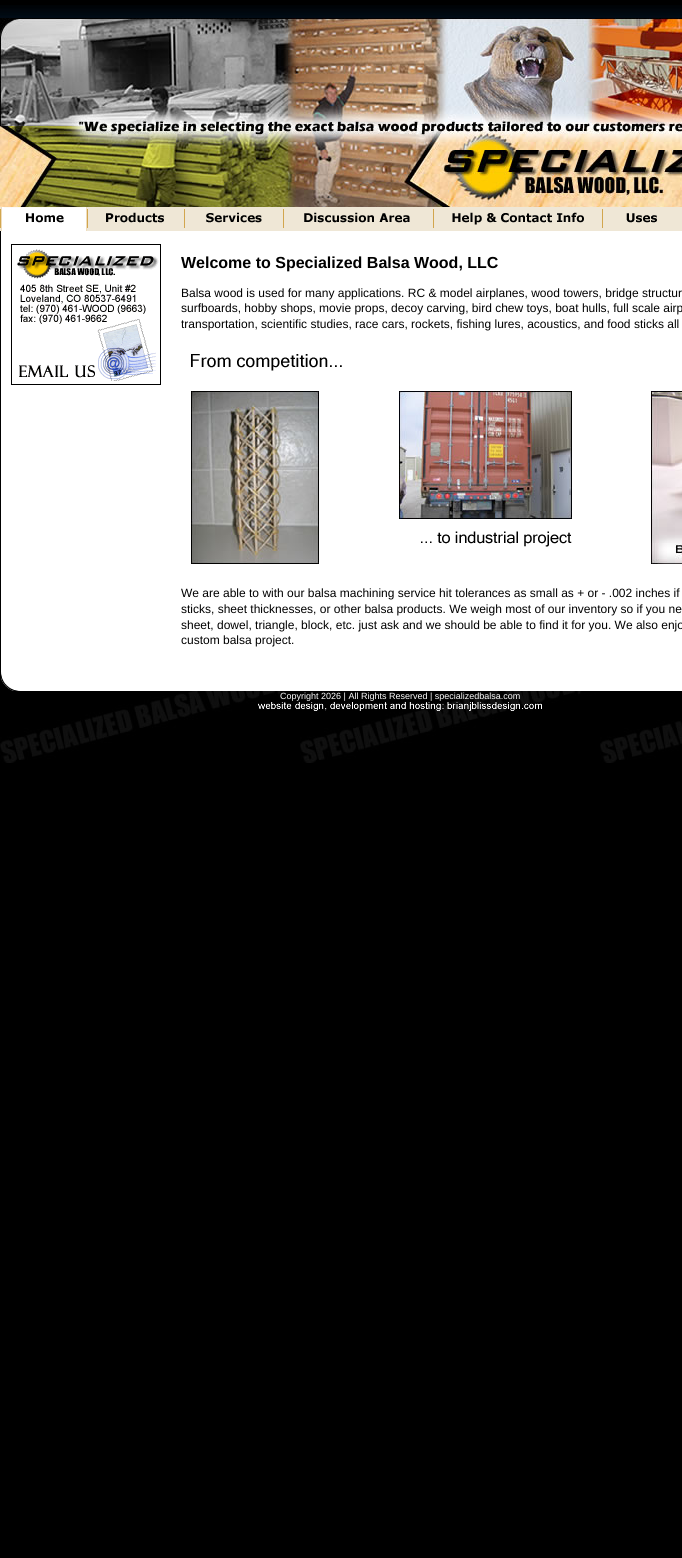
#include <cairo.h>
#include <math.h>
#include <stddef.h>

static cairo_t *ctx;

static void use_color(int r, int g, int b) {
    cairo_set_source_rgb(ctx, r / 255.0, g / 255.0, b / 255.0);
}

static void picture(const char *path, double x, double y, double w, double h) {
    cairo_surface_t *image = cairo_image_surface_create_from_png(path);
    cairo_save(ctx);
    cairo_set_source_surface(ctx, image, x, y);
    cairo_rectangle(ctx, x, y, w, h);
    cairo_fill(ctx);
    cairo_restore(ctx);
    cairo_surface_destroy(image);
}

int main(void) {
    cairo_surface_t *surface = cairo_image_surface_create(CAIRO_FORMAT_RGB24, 682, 1558);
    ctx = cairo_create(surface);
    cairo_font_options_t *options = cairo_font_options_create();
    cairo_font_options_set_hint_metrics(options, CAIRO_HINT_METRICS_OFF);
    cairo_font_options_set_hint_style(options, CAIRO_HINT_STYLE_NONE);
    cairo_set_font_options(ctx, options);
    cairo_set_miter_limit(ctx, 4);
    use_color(0, 0, 0);
    cairo_paint(ctx);
    picture("img1.png", 0, 711, 682, 52);
    picture("img2.png", 0, 5, 682, 706);
    picture("img3.png", 0, 18, 682, 108);
    picture("img4.png", 0, 126, 682, 81);
    use_color(239, 231, 214);
    cairo_rectangle(ctx, 0, 207, 682, 24);
    cairo_fill(ctx);
    use_color(210, 166, 78);
    cairo_rectangle(ctx, 0, 209, 1, 19);
    cairo_fill(ctx);
    picture("img5.png", 1, 207, 86, 24);
    cairo_rectangle(ctx, 87, 209, 1, 19);
    cairo_fill(ctx);
    picture("img6.png", 106, 212, 58, 11);
    cairo_rectangle(ctx, 184, 209, 1, 19);
    cairo_fill(ctx);
    picture("img7.png", 206, 212, 56, 11);
    cairo_rectangle(ctx, 283, 209, 1, 19);
    cairo_fill(ctx);
    picture("img8.png", 304, 212, 106, 11);
    cairo_rectangle(ctx, 433, 209, 1, 19);
    cairo_fill(ctx);
    picture("img9.png", 452, 212, 132, 13);
    cairo_rectangle(ctx, 602, 209, 1, 19);
    cairo_fill(ctx);
    picture("img10.png", 626, 213, 31, 10);
    use_color(255, 255, 255);
    cairo_rectangle(ctx, 1, 231, 681, 460);
    cairo_fill(ctx);
    use_color(0, 0, 0);
    cairo_rectangle(ctx, 0, 231, 1, 460);
    cairo_fill(ctx);
    cairo_rectangle(ctx, 11, 244, 150, 141);
    cairo_fill(ctx);
    use_color(255, 255, 255);
    cairo_rectangle(ctx, 12, 245, 148, 139);
    cairo_fill(ctx);
    picture("img11.png", 17, 249, 142, 132);
    cairo_select_font_face(ctx, "Liberation Sans", CAIRO_FONT_SLANT_NORMAL, CAIRO_FONT_WEIGHT_BOLD);
    cairo_set_font_size(ctx, 16);
    use_color(0, 0, 0);
    cairo_move_to(ctx, 181, 268);
    cairo_show_text(ctx, "Welcome to Specialized Balsa Wood, LLC");
    cairo_select_font_face(ctx, "Liberation Sans", CAIRO_FONT_SLANT_NORMAL, CAIRO_FONT_WEIGHT_NORMAL);
    cairo_set_font_size(ctx, 12);
    cairo_move_to(ctx, 181, 297);
    cairo_show_text(ctx, "Balsa wood is used for many applications. RC & model airplanes, wood towers, bridge structur");
    cairo_move_to(ctx, 181, 312);
    cairo_show_text(ctx, "surfboards, hobby shops, movie props, decoy carving, bird chew toys, boat hulls, full scale airp");
    cairo_move_to(ctx, 181, 328);
    cairo_show_text(ctx, "transportation, scientific studies, race cars, rockets, fishing lures, acoustics, and food sticks all");
    picture("img12.png", 191, 354, 151, 17);
    picture("img13.png", 191, 391, 128, 173);
    picture("img14.png", 399, 391, 173, 128);
    picture("img15.png", 421, 531, 151, 16);
    picture("img16.png", 651, 391, 31, 173);
    cairo_move_to(ctx, 181, 597);
    cairo_show_text(ctx, "We are able to with our balsa machining service hit tolerances as small as + or - .002 inches if");
    cairo_move_to(ctx, 181, 613);
    cairo_show_text(ctx, "sticks, sheet thicknesses, or other balsa products. We weigh most of our inventory so if you ne");
    cairo_move_to(ctx, 181, 629);
    cairo_show_text(ctx, "sheet, dowel, triangle, block, etc. just ask and we should be able to find it for you. We also enjo");
    cairo_move_to(ctx, 181, 644);
    cairo_show_text(ctx, "custom balsa project.");
    picture("img17.png", 1, 672, 19, 19);
    cairo_set_font_size(ctx, 9);
    use_color(255, 255, 255);
    cairo_move_to(ctx, 280, 699);
    cairo_show_text(ctx, "Copyright 2026 | All Rights Reserved | specializedbalsa.com");
    picture("img18.png", 258, 702, 284, 9);
    cairo_surface_write_to_png(surface, "result.png");
    cairo_font_options_destroy(options);
    cairo_destroy(ctx);
    cairo_surface_destroy(surface);
    return 0;
}
